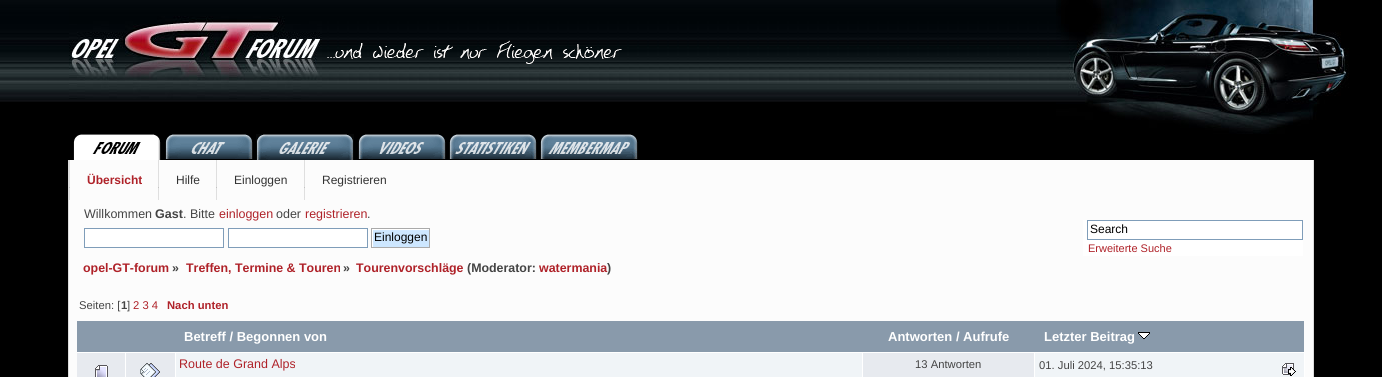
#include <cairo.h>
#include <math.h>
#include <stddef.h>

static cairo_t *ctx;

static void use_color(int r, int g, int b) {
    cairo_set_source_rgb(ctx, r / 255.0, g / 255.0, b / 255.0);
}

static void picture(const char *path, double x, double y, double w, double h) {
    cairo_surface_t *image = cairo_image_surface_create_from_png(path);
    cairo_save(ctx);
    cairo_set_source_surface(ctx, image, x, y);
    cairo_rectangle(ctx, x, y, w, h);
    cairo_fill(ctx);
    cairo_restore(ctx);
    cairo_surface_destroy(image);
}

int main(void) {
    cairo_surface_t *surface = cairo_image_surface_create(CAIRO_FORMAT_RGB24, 1382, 377);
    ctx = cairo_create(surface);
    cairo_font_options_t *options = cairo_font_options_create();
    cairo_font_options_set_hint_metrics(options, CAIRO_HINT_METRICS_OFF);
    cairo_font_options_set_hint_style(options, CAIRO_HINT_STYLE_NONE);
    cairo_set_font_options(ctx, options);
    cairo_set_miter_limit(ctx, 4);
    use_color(0, 0, 0);
    cairo_paint(ctx);
    picture("img1.png", 0, 0, 69, 102);
    picture("img2.png", 69, 0, 987, 102);
    picture("img3.png", 69, 16, 253, 83);
    picture("img4.png", 327, 40, 295, 24);
    picture("img5.png", 1056, 0, 293, 134);
    picture("img6.png", 73, 134, 88, 26);
    picture("img7.png", 165, 134, 88, 25);
    picture("img8.png", 256, 134, 98, 26);
    picture("img9.png", 358, 134, 88, 25);
    picture("img10.png", 449, 134, 88, 25);
    picture("img11.png", 540, 134, 98, 25);
    use_color(252, 252, 252);
    cairo_rectangle(ctx, 69, 160, 1244, 217);
    cairo_fill(ctx);
    use_color(220, 220, 220);
    cairo_rectangle(ctx, 1313, 160, 1, 217);
    cairo_fill(ctx);
    cairo_rectangle(ctx, 68, 160, 1, 217);
    cairo_fill(ctx);
    picture("img12.png", 69, 160, 1, 40);
    cairo_select_font_face(ctx, "Liberation Sans", CAIRO_FONT_SLANT_NORMAL, CAIRO_FONT_WEIGHT_BOLD);
    cairo_set_font_size(ctx, 12);
    use_color(175, 34, 41);
    cairo_move_to(ctx, 87, 184);
    cairo_show_text(ctx, "Übersicht");
    picture("img12.png", 158, 160, 1, 40);
    cairo_select_font_face(ctx, "Liberation Sans", CAIRO_FONT_SLANT_NORMAL, CAIRO_FONT_WEIGHT_NORMAL);
    use_color(51, 51, 51);
    cairo_move_to(ctx, 176, 184);
    cairo_show_text(ctx, "Hilfe");
    picture("img12.png", 216, 160, 1, 40);
    cairo_move_to(ctx, 234, 184);
    cairo_show_text(ctx, "Einloggen");
    picture("img12.png", 304, 160, 1, 40);
    cairo_move_to(ctx, 322, 184);
    cairo_show_text(ctx, "Registrieren");
    cairo_set_font_size(ctx, 12.5);
    use_color(68, 68, 68);
    cairo_move_to(ctx, 84, 218);
    cairo_show_text(ctx, "Willkommen");
    cairo_select_font_face(ctx, "Liberation Sans", CAIRO_FONT_SLANT_NORMAL, CAIRO_FONT_WEIGHT_BOLD);
    cairo_move_to(ctx, 155, 218);
    cairo_show_text(ctx, "Gast");
    cairo_select_font_face(ctx, "Liberation Sans", CAIRO_FONT_SLANT_NORMAL, CAIRO_FONT_WEIGHT_NORMAL);
    cairo_move_to(ctx, 183, 218);
    cairo_show_text(ctx, ". Bitte");
    use_color(175, 34, 41);
    cairo_move_to(ctx, 219, 218);
    cairo_show_text(ctx, "einloggen");
    use_color(68, 68, 68);
    cairo_move_to(ctx, 276, 218);
    cairo_show_text(ctx, "oder");
    use_color(175, 34, 41);
    cairo_move_to(ctx, 305, 218);
    cairo_show_text(ctx, "registrieren");
    use_color(68, 68, 68);
    cairo_move_to(ctx, 367, 218);
    cairo_show_text(ctx, ".");
    use_color(255, 255, 255);
    cairo_rectangle(ctx, 84.5, 228.5, 139, 19);
    cairo_fill_preserve(ctx);
    use_color(127, 157, 185);
    cairo_set_line_width(ctx, 1);
    cairo_stroke(ctx);
    use_color(255, 255, 255);
    cairo_rectangle(ctx, 228.5, 228.5, 139, 19);
    cairo_fill_preserve(ctx);
    use_color(127, 157, 185);
    cairo_stroke(ctx);
    picture("img13.png", 372, 229, 57, 18);
    cairo_rectangle(ctx, 371.5, 228.5, 58, 19);
    use_color(170, 170, 170);
    cairo_stroke(ctx);
    cairo_set_font_size(ctx, 12);
    use_color(0, 0, 0);
    cairo_move_to(ctx, 374, 241);
    cairo_show_text(ctx, "Einloggen");
    use_color(255, 255, 255);
    cairo_rectangle(ctx, 1083, 220, 220, 36);
    cairo_fill(ctx);
    cairo_rectangle(ctx, 1087.5, 220.5, 215, 19);
    use_color(127, 157, 185);
    cairo_stroke(ctx);
    use_color(0, 0, 0);
    cairo_move_to(ctx, 1090, 233);
    cairo_show_text(ctx, "Search");
    cairo_set_font_size(ctx, 11);
    use_color(175, 34, 41);
    cairo_move_to(ctx, 1088, 252);
    cairo_show_text(ctx, "Erweiterte Suche");
    cairo_select_font_face(ctx, "Liberation Sans", CAIRO_FONT_SLANT_NORMAL, CAIRO_FONT_WEIGHT_BOLD);
    cairo_set_font_size(ctx, 12.4);
    cairo_move_to(ctx, 83, 272);
    cairo_show_text(ctx, "opel-GT-forum");
    use_color(68, 68, 68);
    cairo_move_to(ctx, 172, 272);
    cairo_show_text(ctx, "»");
    use_color(175, 34, 41);
    cairo_move_to(ctx, 186, 272);
    cairo_show_text(ctx, "Treffen, Termine & Touren");
    use_color(68, 68, 68);
    cairo_move_to(ctx, 343, 272);
    cairo_show_text(ctx, "»");
    use_color(175, 34, 41);
    cairo_move_to(ctx, 356, 272);
    cairo_show_text(ctx, "Tourenvorschläge");
    use_color(68, 68, 68);
    cairo_move_to(ctx, 467, 272);
    cairo_show_text(ctx, "(Moderator:");
    use_color(175, 34, 41);
    cairo_move_to(ctx, 539, 272);
    cairo_show_text(ctx, "watermania");
    use_color(68, 68, 68);
    cairo_move_to(ctx, 607, 272);
    cairo_show_text(ctx, ")");
    cairo_select_font_face(ctx, "Liberation Sans", CAIRO_FONT_SLANT_NORMAL, CAIRO_FONT_WEIGHT_NORMAL);
    cairo_set_font_size(ctx, 11.25);
    cairo_move_to(ctx, 79, 309);
    cairo_show_text(ctx, "Seiten: [");
    cairo_select_font_face(ctx, "Liberation Sans", CAIRO_FONT_SLANT_NORMAL, CAIRO_FONT_WEIGHT_BOLD);
    cairo_move_to(ctx, 121, 309);
    cairo_show_text(ctx, "1");
    cairo_select_font_face(ctx, "Liberation Sans", CAIRO_FONT_SLANT_NORMAL, CAIRO_FONT_WEIGHT_NORMAL);
    cairo_move_to(ctx, 127, 309);
    cairo_show_text(ctx, "]");
    use_color(175, 34, 41);
    cairo_move_to(ctx, 133, 309);
    cairo_show_text(ctx, "2 3 4");
    cairo_select_font_face(ctx, "Liberation Sans", CAIRO_FONT_SLANT_NORMAL, CAIRO_FONT_WEIGHT_BOLD);
    cairo_move_to(ctx, 167, 309);
    cairo_show_text(ctx, "Nach unten");
    use_color(255, 255, 255);
    cairo_rectangle(ctx, 77, 352, 1228, 1);
    cairo_fill(ctx);
    use_color(137, 154, 171);
    cairo_rectangle(ctx, 77, 321, 1227, 31);
    cairo_fill(ctx);
    cairo_set_font_size(ctx, 13);
    use_color(255, 255, 255);
    cairo_move_to(ctx, 184, 341);
    cairo_show_text(ctx, "Betreff / Begonnen von");
    cairo_move_to(ctx, 888, 341);
    cairo_show_text(ctx, "Antworten / Aufrufe");
    cairo_move_to(ctx, 1044, 341);
    cairo_show_text(ctx, "Letzter Beitrag");
    picture("img14.png", 1138, 332, 12, 7);
    use_color(231, 234, 239);
    cairo_rectangle(ctx, 77, 353, 48, 24);
    cairo_fill(ctx);
    use_color(255, 255, 255);
    cairo_rectangle(ctx, 125, 352, 1, 25);
    cairo_fill(ctx);
    picture("img15.png", 95, 365, 13, 12);
    use_color(231, 234, 239);
    cairo_rectangle(ctx, 126, 353, 49, 24);
    cairo_fill(ctx);
    use_color(255, 255, 255);
    cairo_rectangle(ctx, 175, 352, 1, 25);
    cairo_fill(ctx);
    picture("img16.png", 140, 363, 20, 14);
    use_color(240, 244, 247);
    cairo_rectangle(ctx, 176, 353, 686, 24);
    cairo_fill(ctx);
    use_color(255, 255, 255);
    cairo_rectangle(ctx, 862, 352, 1, 25);
    cairo_fill(ctx);
    cairo_select_font_face(ctx, "Liberation Sans", CAIRO_FONT_SLANT_NORMAL, CAIRO_FONT_WEIGHT_NORMAL);
    cairo_set_font_size(ctx, 12.5);
    use_color(175, 34, 41);
    cairo_move_to(ctx, 179, 368);
    cairo_show_text(ctx, "Route de Grand Alps");
    use_color(231, 234, 239);
    cairo_rectangle(ctx, 863, 353, 171, 24);
    cairo_fill(ctx);
    use_color(255, 255, 255);
    cairo_rectangle(ctx, 1034, 352, 1, 25);
    cairo_fill(ctx);
    cairo_set_font_size(ctx, 11.25);
    use_color(68, 68, 68);
    cairo_move_to(ctx, 915, 368);
    cairo_show_text(ctx, "13 Antworten");
    use_color(240, 244, 247);
    cairo_rectangle(ctx, 1035, 353, 269, 24);
    cairo_fill(ctx);
    use_color(255, 255, 255);
    cairo_rectangle(ctx, 1304, 352, 1, 25);
    cairo_fill(ctx);
    use_color(68, 68, 68);
    cairo_move_to(ctx, 1039, 369);
    cairo_show_text(ctx, "01. Juli 2024, 15:35:13");
    picture("img17.png", 1282, 363, 14, 13);
    cairo_surface_write_to_png(surface, "result.png");
    cairo_font_options_destroy(options);
    cairo_destroy(ctx);
    cairo_surface_destroy(surface);
    return 0;
}
